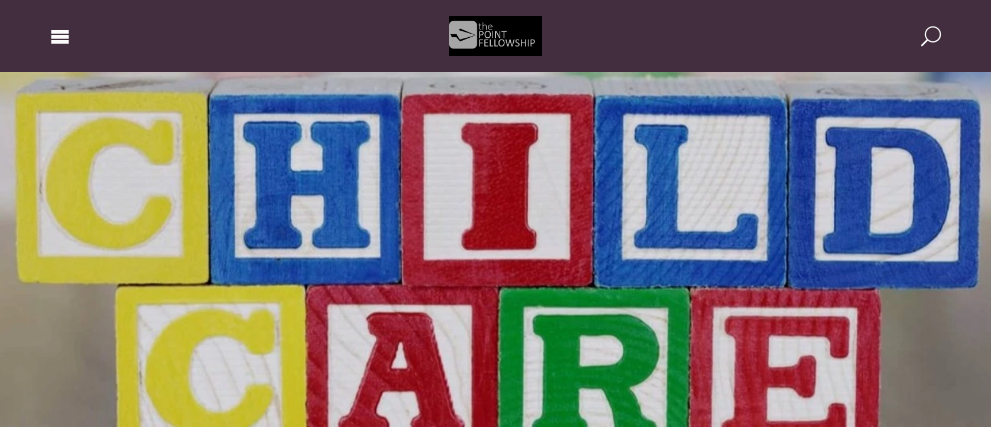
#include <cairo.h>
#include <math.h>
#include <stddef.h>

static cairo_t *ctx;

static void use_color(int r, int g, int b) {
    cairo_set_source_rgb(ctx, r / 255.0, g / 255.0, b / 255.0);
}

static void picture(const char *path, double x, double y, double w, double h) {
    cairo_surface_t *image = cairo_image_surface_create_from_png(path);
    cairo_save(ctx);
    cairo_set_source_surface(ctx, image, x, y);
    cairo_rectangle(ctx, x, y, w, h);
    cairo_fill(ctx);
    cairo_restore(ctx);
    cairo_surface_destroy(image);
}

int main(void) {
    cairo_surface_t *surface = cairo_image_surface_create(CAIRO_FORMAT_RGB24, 991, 427);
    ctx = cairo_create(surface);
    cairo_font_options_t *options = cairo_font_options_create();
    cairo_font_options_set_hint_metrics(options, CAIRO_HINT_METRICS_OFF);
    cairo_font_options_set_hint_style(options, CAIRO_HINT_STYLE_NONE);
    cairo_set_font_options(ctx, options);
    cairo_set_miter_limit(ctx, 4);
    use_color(67, 46, 63);
    cairo_paint(ctx);
    picture("img1.png", 51, 30, 18, 14);
    picture("img2.png", 449, 16, 93, 40);
    picture("img3.png", 921, 26, 21, 21);
    picture("img4.png", 0, 72, 991, 355);
    cairo_surface_write_to_png(surface, "result.png");
    cairo_font_options_destroy(options);
    cairo_destroy(ctx);
    cairo_surface_destroy(surface);
    return 0;
}
